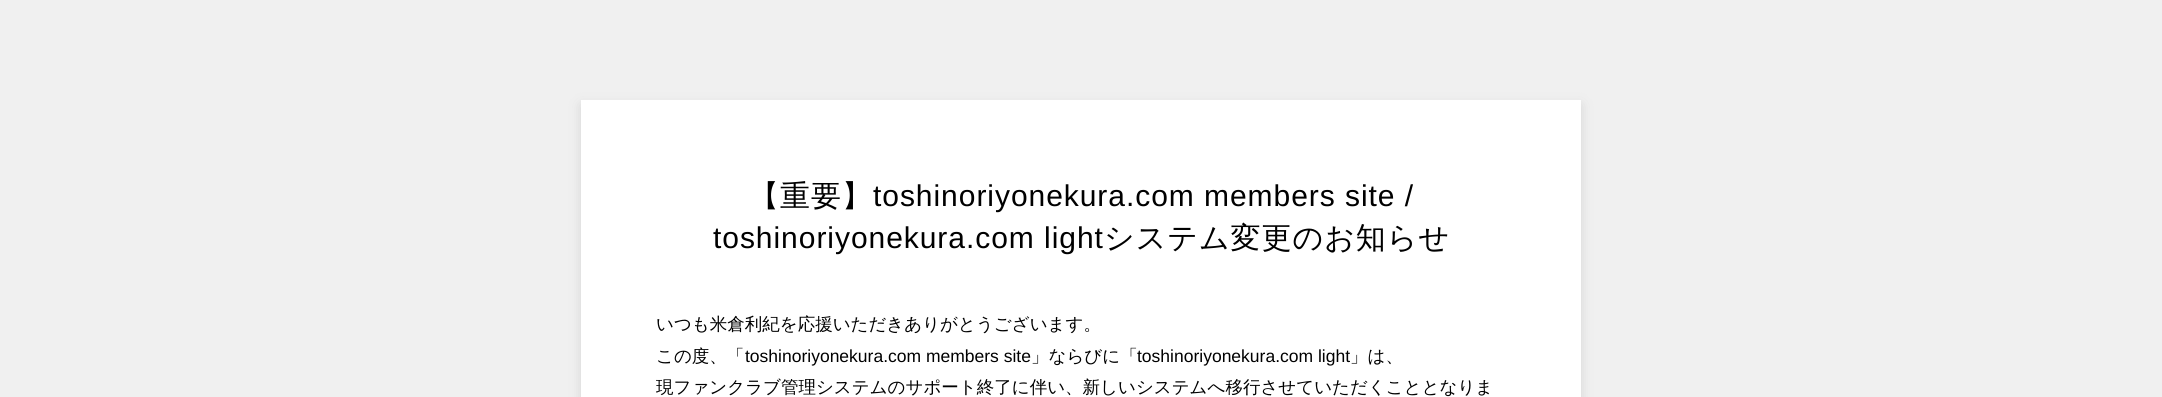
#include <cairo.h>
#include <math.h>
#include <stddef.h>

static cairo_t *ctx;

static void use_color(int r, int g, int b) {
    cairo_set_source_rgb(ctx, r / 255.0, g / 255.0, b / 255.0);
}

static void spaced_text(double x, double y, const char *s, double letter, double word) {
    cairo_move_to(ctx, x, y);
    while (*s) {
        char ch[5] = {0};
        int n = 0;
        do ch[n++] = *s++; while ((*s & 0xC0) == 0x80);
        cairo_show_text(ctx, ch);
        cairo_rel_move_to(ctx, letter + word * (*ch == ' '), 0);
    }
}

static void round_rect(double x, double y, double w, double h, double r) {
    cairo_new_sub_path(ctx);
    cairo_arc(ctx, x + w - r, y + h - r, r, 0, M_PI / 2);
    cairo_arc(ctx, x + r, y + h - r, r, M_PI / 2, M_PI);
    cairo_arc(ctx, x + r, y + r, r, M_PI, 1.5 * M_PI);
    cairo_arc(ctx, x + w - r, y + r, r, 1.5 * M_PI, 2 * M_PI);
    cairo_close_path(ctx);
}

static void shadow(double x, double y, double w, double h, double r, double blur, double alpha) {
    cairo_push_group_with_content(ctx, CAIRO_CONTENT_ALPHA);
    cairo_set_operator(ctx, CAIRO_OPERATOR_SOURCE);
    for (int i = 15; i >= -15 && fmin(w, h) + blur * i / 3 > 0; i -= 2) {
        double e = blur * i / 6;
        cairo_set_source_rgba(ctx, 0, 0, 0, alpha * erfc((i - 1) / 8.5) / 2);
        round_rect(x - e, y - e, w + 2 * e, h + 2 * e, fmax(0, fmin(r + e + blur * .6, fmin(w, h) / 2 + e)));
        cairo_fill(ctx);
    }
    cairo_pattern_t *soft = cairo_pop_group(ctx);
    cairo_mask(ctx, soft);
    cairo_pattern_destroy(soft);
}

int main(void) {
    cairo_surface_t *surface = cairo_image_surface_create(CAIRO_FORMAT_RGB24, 2162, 397);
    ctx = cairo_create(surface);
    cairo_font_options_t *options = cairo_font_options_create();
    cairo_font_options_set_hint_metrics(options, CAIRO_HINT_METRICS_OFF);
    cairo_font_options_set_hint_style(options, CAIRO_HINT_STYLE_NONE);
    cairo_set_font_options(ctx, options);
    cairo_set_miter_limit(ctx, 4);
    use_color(240, 240, 240);
    cairo_paint(ctx);
    use_color(175, 175, 175);
    shadow(581, 105, 1000, 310, 0, 6, 0.4);
    use_color(255, 255, 255);
    cairo_rectangle(ctx, 581, 100, 1000, 297);
    cairo_fill(ctx);
    cairo_select_font_face(ctx, "WenQuanYi Zen Hei Medium", CAIRO_FONT_SLANT_NORMAL, CAIRO_FONT_WEIGHT_NORMAL);
    cairo_set_font_size(ctx, 30);
    use_color(0, 0, 0);
    spaced_text(749, 206, "【重要】", 0.95, 0);
    cairo_select_font_face(ctx, "Liberation Sans", CAIRO_FONT_SLANT_NORMAL, CAIRO_FONT_WEIGHT_NORMAL);
    spaced_text(873, 206, "toshinoriyonekura.com members site /", 0.95, 0);
    spaced_text(713, 248, "toshinoriyonekura.com light", 0.95, 0);
    cairo_select_font_face(ctx, "WenQuanYi Zen Hei Medium", CAIRO_FONT_SLANT_NORMAL, CAIRO_FONT_WEIGHT_NORMAL);
    spaced_text(1104, 248, "システム変更のお知らせ", 0.95, 0);
    cairo_set_font_size(ctx, 17.5);
    cairo_move_to(ctx, 656, 330);
    cairo_show_text(ctx, "いつも米倉利紀を応援いただきありがとうございます。");
    cairo_move_to(ctx, 656, 362);
    cairo_show_text(ctx, "この度、「");
    cairo_select_font_face(ctx, "Liberation Sans", CAIRO_FONT_SLANT_NORMAL, CAIRO_FONT_WEIGHT_NORMAL);
    cairo_move_to(ctx, 745, 362);
    cairo_show_text(ctx, "toshinoriyonekura.com members site");
    cairo_select_font_face(ctx, "WenQuanYi Zen Hei Medium", CAIRO_FONT_SLANT_NORMAL, CAIRO_FONT_WEIGHT_NORMAL);
    cairo_move_to(ctx, 1031, 362);
    cairo_show_text(ctx, "」ならびに「");
    cairo_select_font_face(ctx, "Liberation Sans", CAIRO_FONT_SLANT_NORMAL, CAIRO_FONT_WEIGHT_NORMAL);
    cairo_move_to(ctx, 1137, 362);
    cairo_show_text(ctx, "toshinoriyonekura.com light");
    cairo_select_font_face(ctx, "WenQuanYi Zen Hei Medium", CAIRO_FONT_SLANT_NORMAL, CAIRO_FONT_WEIGHT_NORMAL);
    cairo_move_to(ctx, 1350, 362);
    cairo_show_text(ctx, "」は、");
    cairo_move_to(ctx, 656, 393);
    cairo_show_text(ctx, "現ファンクラブ管理システムのサポート終了に伴い、新しいシステムへ移行させていただくこととなりま");
    cairo_surface_write_to_png(surface, "result.png");
    cairo_font_options_destroy(options);
    cairo_destroy(ctx);
    cairo_surface_destroy(surface);
    return 0;
}
